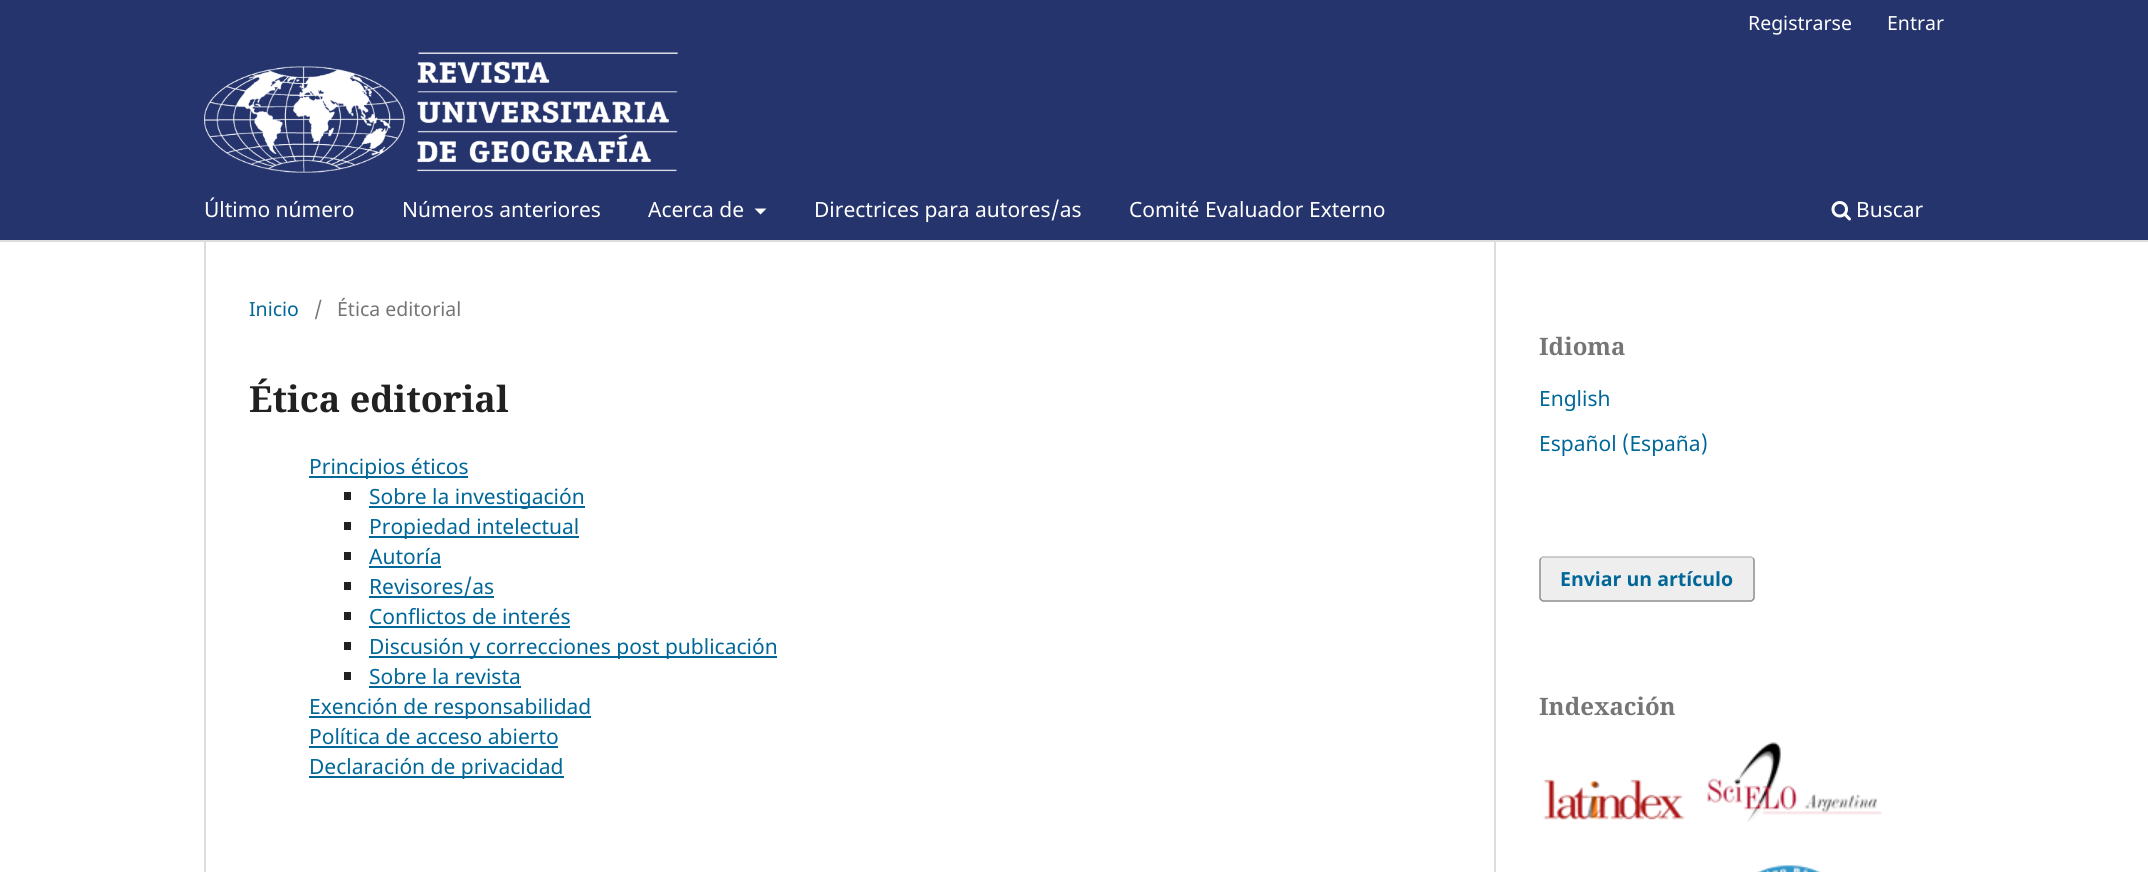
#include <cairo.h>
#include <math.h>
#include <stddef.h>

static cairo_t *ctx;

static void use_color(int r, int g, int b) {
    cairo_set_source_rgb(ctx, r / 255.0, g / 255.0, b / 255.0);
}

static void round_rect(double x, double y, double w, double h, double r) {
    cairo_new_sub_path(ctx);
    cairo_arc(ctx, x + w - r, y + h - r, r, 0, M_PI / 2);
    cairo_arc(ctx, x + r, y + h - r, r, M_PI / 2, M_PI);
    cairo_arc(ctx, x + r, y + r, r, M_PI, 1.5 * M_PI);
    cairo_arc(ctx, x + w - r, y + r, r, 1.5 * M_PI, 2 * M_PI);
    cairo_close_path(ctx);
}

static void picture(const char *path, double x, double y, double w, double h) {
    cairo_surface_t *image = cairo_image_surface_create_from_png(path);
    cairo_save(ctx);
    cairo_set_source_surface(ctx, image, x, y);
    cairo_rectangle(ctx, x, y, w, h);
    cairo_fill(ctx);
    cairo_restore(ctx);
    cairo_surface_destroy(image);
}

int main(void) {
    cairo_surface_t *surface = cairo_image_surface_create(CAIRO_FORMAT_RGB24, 2148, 872);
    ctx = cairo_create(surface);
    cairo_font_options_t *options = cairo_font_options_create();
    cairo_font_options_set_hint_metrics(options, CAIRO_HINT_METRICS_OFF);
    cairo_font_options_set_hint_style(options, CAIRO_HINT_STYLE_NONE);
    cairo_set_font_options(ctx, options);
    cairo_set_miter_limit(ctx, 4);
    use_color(255, 255, 255);
    cairo_paint(ctx);
    use_color(37, 52, 109);
    cairo_rectangle(ctx, 0, 0, 2148, 240);
    cairo_fill(ctx);
    use_color(221, 221, 221);
    cairo_rectangle(ctx, 0, 240, 2148, 2);
    cairo_fill(ctx);
    cairo_select_font_face(ctx, "Noto Sans", CAIRO_FONT_SLANT_NORMAL, CAIRO_FONT_WEIGHT_NORMAL);
    cairo_set_font_size(ctx, 19.5);
    use_color(255, 255, 255);
    cairo_move_to(ctx, 1748, 30);
    cairo_show_text(ctx, "Registrarse");
    cairo_move_to(ctx, 1887, 30);
    cairo_show_text(ctx, "Entrar");
    cairo_set_font_size(ctx, 21);
    cairo_move_to(ctx, 204, 217);
    cairo_show_text(ctx, "Último número");
    cairo_move_to(ctx, 402, 217);
    cairo_show_text(ctx, "Números anteriores");
    cairo_move_to(ctx, 648, 217);
    cairo_show_text(ctx, "Acerca de");
    cairo_new_path(ctx);
    cairo_move_to(ctx, 754.5, 208.5);
    cairo_line_to(ctx, 766.5, 208.5);
    cairo_line_to(ctx, 760.5, 214.5);
    cairo_close_path(ctx);
    cairo_fill(ctx);
    cairo_move_to(ctx, 814, 217);
    cairo_show_text(ctx, "Directrices para autores/as");
    cairo_move_to(ctx, 1129, 217);
    cairo_show_text(ctx, "Comité Evaluador Externo");
    picture("img1.png", 1831, 201, 20, 20);
    cairo_move_to(ctx, 1856, 217);
    cairo_show_text(ctx, "Buscar");
    picture("img2.png", 204, 52, 474, 121);
    use_color(221, 221, 221);
    cairo_rectangle(ctx, 204, 242, 2, 630);
    cairo_fill(ctx);
    cairo_set_font_size(ctx, 19.5);
    use_color(0, 103, 152);
    cairo_move_to(ctx, 249, 316);
    cairo_show_text(ctx, "Inicio");
    use_color(117, 117, 117);
    cairo_move_to(ctx, 314, 316);
    cairo_show_text(ctx, "/");
    cairo_move_to(ctx, 337, 316);
    cairo_show_text(ctx, "Ética editorial");
    use_color(221, 221, 221);
    cairo_rectangle(ctx, 1494, 242, 2, 630);
    cairo_fill(ctx);
    cairo_select_font_face(ctx, "Noto Serif", CAIRO_FONT_SLANT_NORMAL, CAIRO_FONT_WEIGHT_BOLD);
    cairo_set_font_size(ctx, 36);
    use_color(33, 33, 33);
    cairo_move_to(ctx, 249, 412);
    cairo_show_text(ctx, "Ética editorial");
    use_color(0, 103, 152);
    cairo_rectangle(ctx, 309, 476, 159, 2);
    cairo_fill(ctx);
    cairo_select_font_face(ctx, "Noto Sans", CAIRO_FONT_SLANT_NORMAL, CAIRO_FONT_WEIGHT_NORMAL);
    cairo_set_font_size(ctx, 21);
    cairo_move_to(ctx, 309, 474);
    cairo_show_text(ctx, "Principios éticos");
    use_color(33, 33, 33);
    cairo_rectangle(ctx, 344, 492, 7, 8);
    cairo_fill(ctx);
    use_color(0, 103, 152);
    cairo_rectangle(ctx, 369, 506, 216, 2);
    cairo_fill(ctx);
    cairo_move_to(ctx, 369, 504);
    cairo_show_text(ctx, "Sobre la investigación");
    use_color(33, 33, 33);
    cairo_rectangle(ctx, 344, 522, 7, 8);
    cairo_fill(ctx);
    use_color(0, 103, 152);
    cairo_rectangle(ctx, 369, 536, 210, 2);
    cairo_fill(ctx);
    cairo_move_to(ctx, 369, 534);
    cairo_show_text(ctx, "Propiedad intelectual");
    use_color(33, 33, 33);
    cairo_rectangle(ctx, 344, 552, 7, 8);
    cairo_fill(ctx);
    use_color(0, 103, 152);
    cairo_move_to(ctx, 369, 564);
    cairo_show_text(ctx, "Autoría");
    cairo_rectangle(ctx, 369, 566, 72, 2);
    cairo_fill(ctx);
    use_color(33, 33, 33);
    cairo_rectangle(ctx, 344, 582, 7, 8);
    cairo_fill(ctx);
    use_color(0, 103, 152);
    cairo_rectangle(ctx, 369, 596, 125, 2);
    cairo_fill(ctx);
    cairo_move_to(ctx, 369, 594);
    cairo_show_text(ctx, "Revisores/as");
    use_color(33, 33, 33);
    cairo_rectangle(ctx, 344, 612, 7, 8);
    cairo_fill(ctx);
    use_color(0, 103, 152);
    cairo_move_to(ctx, 369, 624);
    cairo_show_text(ctx, "Conflictos de interés");
    cairo_rectangle(ctx, 369, 626, 201, 2);
    cairo_fill(ctx);
    use_color(33, 33, 33);
    cairo_rectangle(ctx, 344, 642, 7, 8);
    cairo_fill(ctx);
    use_color(0, 103, 152);
    cairo_rectangle(ctx, 369, 656, 408, 2);
    cairo_fill(ctx);
    cairo_move_to(ctx, 369, 654);
    cairo_show_text(ctx, "Discusión y correcciones post publicación");
    use_color(33, 33, 33);
    cairo_rectangle(ctx, 344, 672, 7, 8);
    cairo_fill(ctx);
    use_color(0, 103, 152);
    cairo_move_to(ctx, 369, 684);
    cairo_show_text(ctx, "Sobre la revista");
    cairo_rectangle(ctx, 369, 686, 152, 2);
    cairo_fill(ctx);
    cairo_rectangle(ctx, 309, 716, 282, 2);
    cairo_fill(ctx);
    cairo_move_to(ctx, 309, 714);
    cairo_show_text(ctx, "Exención de responsabilidad");
    cairo_move_to(ctx, 309, 744);
    cairo_show_text(ctx, "Política de acceso abierto");
    cairo_rectangle(ctx, 309, 746, 249, 2);
    cairo_fill(ctx);
    cairo_rectangle(ctx, 309, 776, 255, 2);
    cairo_fill(ctx);
    cairo_move_to(ctx, 309, 774);
    cairo_show_text(ctx, "Declaración de privacidad");
    cairo_select_font_face(ctx, "Noto Serif", CAIRO_FONT_SLANT_NORMAL, CAIRO_FONT_WEIGHT_BOLD);
    cairo_set_font_size(ctx, 24);
    use_color(117, 117, 117);
    cairo_move_to(ctx, 1539, 355);
    cairo_show_text(ctx, "Idioma");
    cairo_select_font_face(ctx, "Noto Sans", CAIRO_FONT_SLANT_NORMAL, CAIRO_FONT_WEIGHT_NORMAL);
    cairo_set_font_size(ctx, 21);
    use_color(0, 103, 152);
    cairo_move_to(ctx, 1539, 406);
    cairo_show_text(ctx, "English");
    cairo_move_to(ctx, 1539, 451);
    cairo_show_text(ctx, "Español (España)");
    use_color(238, 238, 238);
    round_rect(1539, 557, 216, 45, 5);
    cairo_fill(ctx);
    cairo_new_path(ctx);
    cairo_move_to(ctx, 1541, 558.5);
    cairo_curve_to(ctx, 1541.5, 557.5, 1542.5, 557, 1543.5, 557);
    cairo_line_to(ctx, 1750.5, 557);
    cairo_curve_to(ctx, 1751.5, 557, 1752.5, 557.5, 1753, 558.5);
    use_color(187, 187, 187);
    cairo_set_line_width(ctx, 1.5);
    cairo_stroke(ctx);
    cairo_new_path(ctx);
    cairo_move_to(ctx, 1753, 558.5);
    cairo_curve_to(ctx, 1754, 559, 1754, 560, 1754, 561);
    cairo_line_to(ctx, 1754, 597);
    cairo_curve_to(ctx, 1754, 598, 1754, 599, 1753, 599.5);
    cairo_curve_to(ctx, 1752.5, 600.5, 1751.5, 601, 1750.5, 601);
    cairo_line_to(ctx, 1543.5, 601);
    cairo_curve_to(ctx, 1542.5, 601, 1541.5, 600.5, 1541, 599.5);
    cairo_curve_to(ctx, 1540, 599, 1540, 598, 1540, 597);
    cairo_line_to(ctx, 1540, 561);
    cairo_curve_to(ctx, 1540, 560, 1540, 559, 1541, 558.5);
    cairo_set_source_rgba(ctx, 0, 0, 0, 0.4);
    cairo_stroke(ctx);
    cairo_select_font_face(ctx, "Noto Sans", CAIRO_FONT_SLANT_NORMAL, CAIRO_FONT_WEIGHT_BOLD);
    cairo_set_font_size(ctx, 19.5);
    use_color(0, 103, 152);
    cairo_move_to(ctx, 1560, 586);
    cairo_show_text(ctx, "Enviar un artículo");
    cairo_select_font_face(ctx, "Noto Serif", CAIRO_FONT_SLANT_NORMAL, CAIRO_FONT_WEIGHT_BOLD);
    cairo_set_font_size(ctx, 24);
    use_color(117, 117, 117);
    cairo_move_to(ctx, 1539, 715);
    cairo_show_text(ctx, "Indexación");
    picture("img3.png", 1543, 779, 142, 41);
    picture("img4.png", 1706, 742, 176, 80);
    picture("img5.png", 1756, 864, 65, 8);
    cairo_surface_write_to_png(surface, "result.png");
    cairo_font_options_destroy(options);
    cairo_destroy(ctx);
    cairo_surface_destroy(surface);
    return 0;
}
